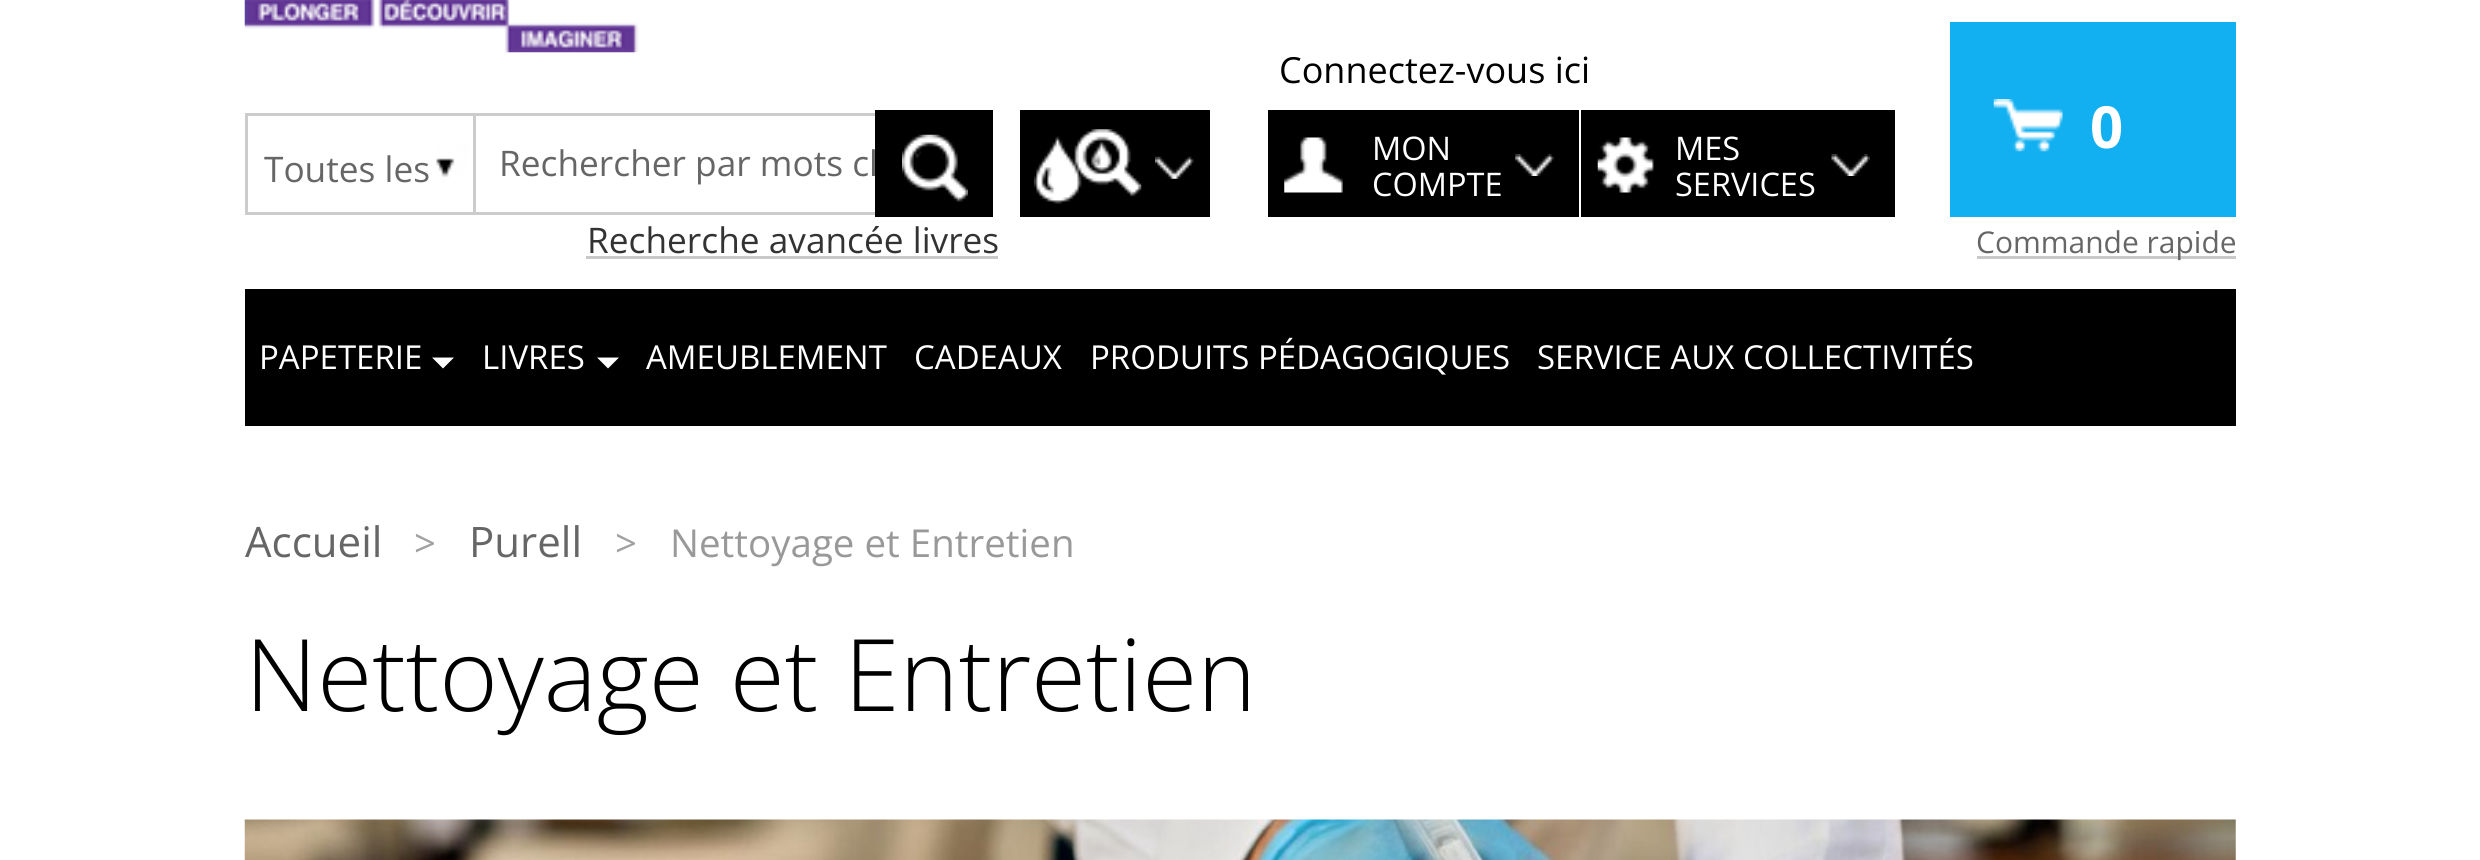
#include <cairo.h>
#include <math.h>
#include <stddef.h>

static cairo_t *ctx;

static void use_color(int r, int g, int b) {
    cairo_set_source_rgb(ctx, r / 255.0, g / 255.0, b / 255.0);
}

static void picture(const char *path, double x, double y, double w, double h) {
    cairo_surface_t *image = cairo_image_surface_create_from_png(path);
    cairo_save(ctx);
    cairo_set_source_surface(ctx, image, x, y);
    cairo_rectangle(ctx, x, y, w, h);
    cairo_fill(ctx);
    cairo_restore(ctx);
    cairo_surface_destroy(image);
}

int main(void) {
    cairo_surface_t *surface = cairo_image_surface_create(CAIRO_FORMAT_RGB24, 2480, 860);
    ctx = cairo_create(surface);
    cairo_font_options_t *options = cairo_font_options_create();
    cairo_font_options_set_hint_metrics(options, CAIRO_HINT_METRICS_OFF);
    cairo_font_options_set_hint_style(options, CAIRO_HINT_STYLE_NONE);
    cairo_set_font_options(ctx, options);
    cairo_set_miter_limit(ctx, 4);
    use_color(255, 255, 255);
    cairo_paint(ctx);
    picture("img1.png", 244, 0, 395, 53);
    cairo_select_font_face(ctx, "Open Sans", CAIRO_FONT_SLANT_NORMAL, CAIRO_FONT_WEIGHT_NORMAL);
    cairo_set_font_size(ctx, 36);
    use_color(0, 0, 0);
    cairo_move_to(ctx, 1279, 83);
    cairo_show_text(ctx, "Connectez-vous ici");
    cairo_rectangle(ctx, 1268, 110, 311, 107);
    cairo_fill(ctx);
    picture("img2.png", 1284, 137, 59, 56);
    cairo_set_font_size(ctx, 32.5);
    use_color(255, 255, 255);
    cairo_move_to(ctx, 1372, 160);
    cairo_show_text(ctx, "MON");
    cairo_move_to(ctx, 1372, 196);
    cairo_show_text(ctx, "COMPTE");
    picture("img3.png", 1515, 154, 39, 22);
    use_color(0, 0, 0);
    cairo_rectangle(ctx, 1581, 110, 314, 107);
    cairo_fill(ctx);
    picture("img4.png", 1597, 137, 57, 56);
    use_color(255, 255, 255);
    cairo_move_to(ctx, 1675, 160);
    cairo_show_text(ctx, "MES");
    cairo_move_to(ctx, 1675, 196);
    cairo_show_text(ctx, "SERVICES");
    picture("img5.png", 1831, 154, 39, 22);
    use_color(18, 176, 240);
    cairo_rectangle(ctx, 1950, 22, 286, 195);
    cairo_fill(ctx);
    picture("img6.png", 1993, 99, 70, 53);
    cairo_select_font_face(ctx, "Open Sans", CAIRO_FONT_SLANT_NORMAL, CAIRO_FONT_WEIGHT_BOLD);
    cairo_set_font_size(ctx, 58);
    use_color(255, 255, 255);
    cairo_move_to(ctx, 2090, 148);
    cairo_show_text(ctx, "0");
    picture("img7.png", 436, 116, 37, 96);
    cairo_rectangle(ctx, 474.5, 114.5, 517, 99);
    use_color(204, 204, 204);
    cairo_set_line_width(ctx, 3);
    cairo_stroke(ctx);
    cairo_rectangle(ctx, 246.5, 114.5, 228, 99);
    cairo_stroke(ctx);
    cairo_select_font_face(ctx, "Open Sans", CAIRO_FONT_SLANT_NORMAL, CAIRO_FONT_WEIGHT_NORMAL);
    cairo_set_font_size(ctx, 35.25);
    use_color(102, 102, 102);
    cairo_move_to(ctx, 264, 182);
    cairo_show_text(ctx, "Toutes les");
    cairo_move_to(ctx, 499, 176);
    cairo_show_text(ctx, "Rechercher par mots cl");
    use_color(0, 0, 0);
    cairo_rectangle(ctx, 875, 110, 118, 107);
    cairo_fill(ctx);
    picture("img8.png", 902, 134, 66, 68);
    cairo_rectangle(ctx, 1020, 110, 190, 107);
    cairo_fill(ctx);
    picture("img9.png", 1034, 129, 108, 75);
    picture("img10.png", 1155, 156, 39, 23);
    use_color(51, 51, 51);
    cairo_move_to(ctx, 587, 253);
    cairo_show_text(ctx, "Recherche avancée livres");
    use_color(201, 201, 201);
    cairo_rectangle(ctx, 586, 256, 412, 3);
    cairo_fill(ctx);
    cairo_rectangle(ctx, 1977, 256, 259, 3);
    cairo_fill(ctx);
    cairo_set_font_size(ctx, 30);
    use_color(102, 102, 102);
    cairo_move_to(ctx, 1976, 253);
    cairo_show_text(ctx, "Commande rapide");
    use_color(0, 0, 0);
    cairo_rectangle(ctx, 245, 289, 1991, 137);
    cairo_fill(ctx);
    cairo_set_font_size(ctx, 33);
    use_color(255, 255, 255);
    cairo_move_to(ctx, 259, 369);
    cairo_show_text(ctx, "PAPETERIE");
    cairo_new_path(ctx);
    cairo_move_to(ctx, 432, 357.5);
    cairo_line_to(ctx, 454, 357.5);
    cairo_line_to(ctx, 443, 368.5);
    cairo_close_path(ctx);
    cairo_fill(ctx);
    cairo_move_to(ctx, 482, 369);
    cairo_show_text(ctx, "LIVRES");
    cairo_new_path(ctx);
    cairo_move_to(ctx, 597, 357.5);
    cairo_line_to(ctx, 619, 357.5);
    cairo_line_to(ctx, 608, 368.5);
    cairo_close_path(ctx);
    cairo_fill(ctx);
    cairo_move_to(ctx, 646, 369);
    cairo_show_text(ctx, "AMEUBLEMENT");
    cairo_move_to(ctx, 914, 369);
    cairo_show_text(ctx, "CADEAUX");
    cairo_move_to(ctx, 1090, 369);
    cairo_show_text(ctx, "PRODUITS PÉDAGOGIQUES");
    cairo_move_to(ctx, 1537, 369);
    cairo_show_text(ctx, "SERVICE AUX COLLECTIVITÉS");
    cairo_set_font_size(ctx, 42);
    use_color(102, 102, 102);
    cairo_move_to(ctx, 245, 557);
    cairo_show_text(ctx, "Accueil");
    cairo_set_font_size(ctx, 38.5);
    use_color(161, 161, 161);
    cairo_move_to(ctx, 414, 557);
    cairo_show_text(ctx, ">");
    cairo_set_font_size(ctx, 42);
    use_color(102, 102, 102);
    cairo_move_to(ctx, 469, 557);
    cairo_show_text(ctx, "Purell");
    cairo_set_font_size(ctx, 38.5);
    use_color(161, 161, 161);
    cairo_move_to(ctx, 615, 557);
    cairo_show_text(ctx, ">");
    use_color(153, 153, 153);
    cairo_move_to(ctx, 670, 557);
    cairo_show_text(ctx, "Nettoyage et Entretien");
    cairo_select_font_face(ctx, "Open Sans Light", CAIRO_FONT_SLANT_NORMAL, CAIRO_FONT_WEIGHT_NORMAL);
    cairo_set_font_size(ctx, 100.1);
    use_color(0, 0, 0);
    cairo_move_to(ctx, 245, 711);
    cairo_show_text(ctx, "Nettoyage et Entretien");
    picture("img11.png", 244, 819, 1992, 41);
    cairo_surface_write_to_png(surface, "result.png");
    cairo_font_options_destroy(options);
    cairo_destroy(ctx);
    cairo_surface_destroy(surface);
    return 0;
}
